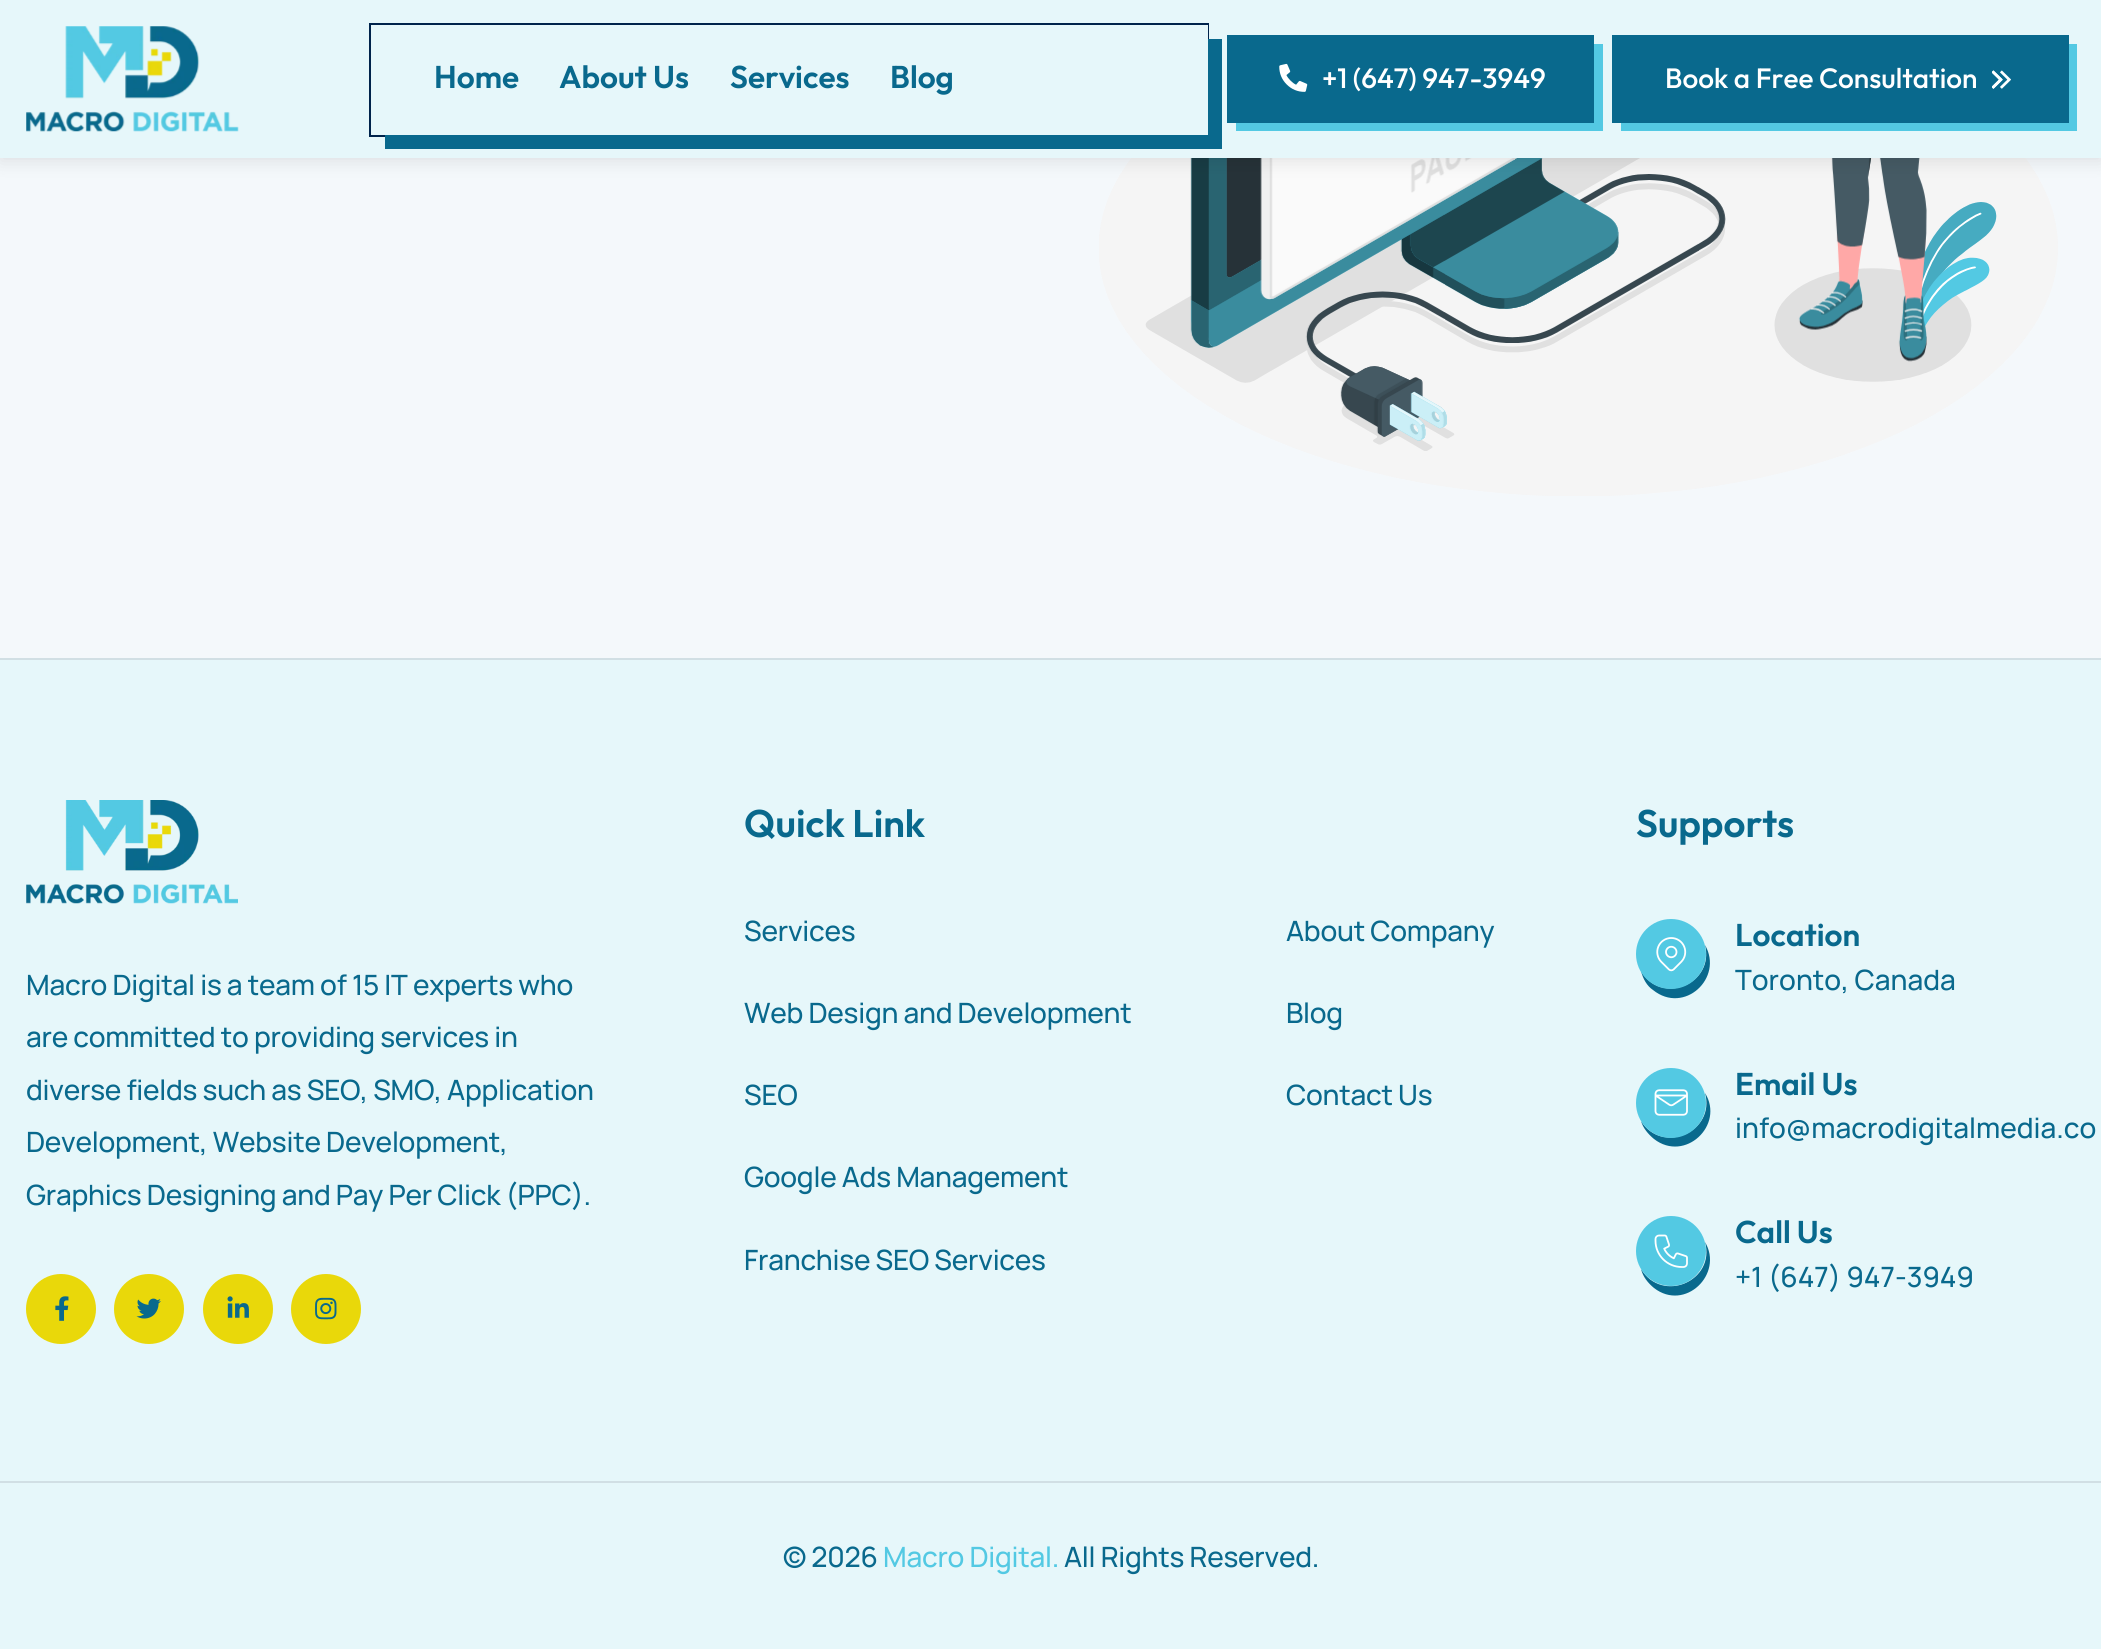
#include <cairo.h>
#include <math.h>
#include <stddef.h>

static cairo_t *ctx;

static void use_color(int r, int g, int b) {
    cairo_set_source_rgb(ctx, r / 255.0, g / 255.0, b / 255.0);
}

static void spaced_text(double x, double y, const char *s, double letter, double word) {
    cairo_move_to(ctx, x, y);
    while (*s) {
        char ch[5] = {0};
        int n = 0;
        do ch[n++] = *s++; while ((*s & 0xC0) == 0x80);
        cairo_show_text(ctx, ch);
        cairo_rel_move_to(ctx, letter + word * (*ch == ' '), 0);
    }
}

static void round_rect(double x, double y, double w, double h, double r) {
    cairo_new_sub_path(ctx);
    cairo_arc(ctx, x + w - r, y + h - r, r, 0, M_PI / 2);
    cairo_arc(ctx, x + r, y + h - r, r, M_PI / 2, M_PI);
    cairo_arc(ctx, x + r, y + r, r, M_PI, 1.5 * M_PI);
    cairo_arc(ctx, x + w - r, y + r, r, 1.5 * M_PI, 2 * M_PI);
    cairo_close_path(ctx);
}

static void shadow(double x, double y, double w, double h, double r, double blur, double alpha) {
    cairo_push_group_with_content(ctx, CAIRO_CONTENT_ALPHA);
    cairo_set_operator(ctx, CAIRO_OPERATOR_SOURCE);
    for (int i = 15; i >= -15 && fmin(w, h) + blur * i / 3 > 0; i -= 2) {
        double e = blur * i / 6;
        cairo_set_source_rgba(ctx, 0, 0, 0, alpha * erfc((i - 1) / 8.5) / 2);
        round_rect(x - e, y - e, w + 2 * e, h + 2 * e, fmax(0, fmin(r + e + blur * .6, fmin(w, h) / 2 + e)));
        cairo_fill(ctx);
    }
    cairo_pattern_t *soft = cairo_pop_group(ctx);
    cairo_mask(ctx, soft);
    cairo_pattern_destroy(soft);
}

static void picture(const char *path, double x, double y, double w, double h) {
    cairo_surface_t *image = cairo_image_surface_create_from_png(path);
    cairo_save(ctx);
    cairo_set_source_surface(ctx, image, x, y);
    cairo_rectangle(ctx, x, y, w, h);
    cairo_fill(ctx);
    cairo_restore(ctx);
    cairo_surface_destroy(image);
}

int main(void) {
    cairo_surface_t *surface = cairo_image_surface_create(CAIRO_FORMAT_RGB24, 2101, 1649);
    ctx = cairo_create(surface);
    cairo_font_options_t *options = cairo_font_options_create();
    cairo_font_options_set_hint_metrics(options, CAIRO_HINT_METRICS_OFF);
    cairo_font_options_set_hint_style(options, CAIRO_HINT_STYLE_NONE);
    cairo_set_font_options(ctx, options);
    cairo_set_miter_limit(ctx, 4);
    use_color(230, 247, 250);
    cairo_paint(ctx);
    use_color(244, 248, 251);
    cairo_rectangle(ctx, 0, 158, 2101, 500);
    cairo_fill(ctx);
    picture("img4.png", 1099, 158, 959, 338);
    use_color(0, 0, 0);
    shadow(0, 4, 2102, 157, 0, 9, 0.1);
    use_color(230, 247, 250);
    cairo_rectangle(ctx, 0, 0, 2101, 158);
    cairo_fill(ctx);
    picture("img1.png", 26, 26, 213, 106);
    cairo_rectangle(ctx, 370, 24, 838, 112);
    use_color(0, 35, 75);
    cairo_stroke(ctx);
    use_color(9, 105, 141);
    cairo_rectangle(ctx, 385, 39, 837, 110);
    cairo_fill(ctx);
    use_color(230, 247, 250);
    cairo_rectangle(ctx, 385, 25, 823, 110);
    cairo_fill(ctx);
    cairo_select_font_face(ctx, "Outfit SemiBold", CAIRO_FONT_SLANT_NORMAL, CAIRO_FONT_WEIGHT_NORMAL);
    cairo_set_font_size(ctx, 31.5);
    use_color(9, 105, 141);
    cairo_move_to(ctx, 434, 88);
    cairo_show_text(ctx, "Home");
    cairo_move_to(ctx, 559, 88);
    cairo_show_text(ctx, "About Us");
    cairo_move_to(ctx, 730, 88);
    cairo_show_text(ctx, "Services");
    cairo_move_to(ctx, 890, 88);
    cairo_show_text(ctx, "Blog");
    use_color(83, 201, 227);
    cairo_new_path(ctx);
    cairo_move_to(ctx, 1236, 122);
    cairo_line_to(ctx, 1236, 131);
    cairo_line_to(ctx, 1603, 131);
    cairo_line_to(ctx, 1603, 44);
    cairo_line_to(ctx, 1594, 44);
    cairo_line_to(ctx, 1594, 122);
    cairo_close_path(ctx);
    cairo_fill(ctx);
    use_color(9, 105, 141);
    cairo_rectangle(ctx, 1227, 35, 367, 88);
    cairo_fill(ctx);
    picture("img2.png", 1279, 63, 29, 29);
    cairo_select_font_face(ctx, "Outfit Medium", CAIRO_FONT_SLANT_NORMAL, CAIRO_FONT_WEIGHT_NORMAL);
    cairo_set_font_size(ctx, 28);
    use_color(255, 255, 255);
    cairo_move_to(ctx, 1322, 88);
    cairo_show_text(ctx, "+1 (647) 947-3949");
    use_color(83, 201, 227);
    cairo_new_path(ctx);
    cairo_move_to(ctx, 1621, 122);
    cairo_line_to(ctx, 1621, 131);
    cairo_line_to(ctx, 2077, 131);
    cairo_line_to(ctx, 2077, 44);
    cairo_line_to(ctx, 2068, 44);
    cairo_line_to(ctx, 2068, 122);
    cairo_close_path(ctx);
    cairo_fill(ctx);
    use_color(9, 105, 141);
    cairo_rectangle(ctx, 1612, 35, 457, 88);
    cairo_fill(ctx);
    use_color(255, 255, 255);
    cairo_move_to(ctx, 1665, 88);
    cairo_show_text(ctx, "Book a Free Consultation");
    picture("img3.png", 1992, 70, 19, 19);
    use_color(209, 223, 228);
    cairo_rectangle(ctx, 0, 658, 2101, 2);
    cairo_fill(ctx);
    picture("img5.png", 26, 800, 212, 104);
    cairo_select_font_face(ctx, "Manrope Medium", CAIRO_FONT_SLANT_NORMAL, CAIRO_FONT_WEIGHT_NORMAL);
    use_color(9, 105, 141);
    spaced_text(26, 995, "Macro Digital is a team of 15 IT experts who", -0.25, 0);
    spaced_text(26, 1047, "are committed to providing services in", -0.25, 0);
    spaced_text(26, 1100, "diverse fields such as SEO, SMO, Application", -0.25, 0);
    spaced_text(26, 1152, "Development, Website Development,", -0.25, 0);
    spaced_text(26, 1205, "Graphics Designing and Pay Per Click (PPC).", -0.25, 0);
    use_color(233, 216, 10);
    cairo_new_path(ctx);
    cairo_arc(ctx, 61, 1309, 35, 0, 2 * M_PI);
    cairo_fill(ctx);
    picture("img6.png", 55, 1296, 14, 25);
    cairo_arc(ctx, 149, 1309, 35, 0, 2 * M_PI);
    cairo_fill(ctx);
    picture("img7.png", 136, 1298, 25, 21);
    cairo_arc(ctx, 238, 1309, 35, 0, 2 * M_PI);
    cairo_fill(ctx);
    picture("img8.png", 227, 1296, 22, 22);
    cairo_arc(ctx, 326, 1309, 35, 0, 2 * M_PI);
    cairo_fill(ctx);
    picture("img9.png", 315, 1297, 22, 23);
    cairo_select_font_face(ctx, "Outfit SemiBold", CAIRO_FONT_SLANT_NORMAL, CAIRO_FONT_WEIGHT_NORMAL);
    cairo_set_font_size(ctx, 38.5);
    use_color(9, 105, 141);
    cairo_move_to(ctx, 744, 837);
    cairo_show_text(ctx, "Quick Link");
    cairo_select_font_face(ctx, "Manrope Medium", CAIRO_FONT_SLANT_NORMAL, CAIRO_FONT_WEIGHT_NORMAL);
    cairo_set_font_size(ctx, 28);
    spaced_text(744, 941, "Services", -0.25, 0);
    spaced_text(744, 1023, "Web Design and Development", -0.25, 0);
    spaced_text(744, 1105, "SEO", -0.25, 0);
    spaced_text(744, 1187, "Google Ads Management", -0.25, 0);
    spaced_text(744, 1270, "Franchise SEO Services", -0.25, 0);
    spaced_text(1286, 941, "About Company", -0.25, 0);
    spaced_text(1286, 1023, "Blog", -0.25, 0);
    spaced_text(1286, 1105, "Contact Us", -0.25, 0);
    cairo_select_font_face(ctx, "Outfit SemiBold", CAIRO_FONT_SLANT_NORMAL, CAIRO_FONT_WEIGHT_NORMAL);
    cairo_set_font_size(ctx, 38.5);
    cairo_move_to(ctx, 1636, 837);
    cairo_show_text(ctx, "Supports");
    cairo_new_path(ctx);
    cairo_move_to(ctx, 1641, 971);
    cairo_curve_to(ctx, 1643, 979, 1647, 986, 1653, 990);
    cairo_curve_to(ctx, 1684, 1015, 1724, 978, 1705, 945);
    cairo_curve_to(ctx, 1715, 984, 1661, 1006, 1641, 971);
    cairo_close_path(ctx);
    cairo_fill(ctx);
    use_color(83, 201, 227);
    cairo_arc(ctx, 1671, 954, 35, 0, 2 * M_PI);
    cairo_fill(ctx);
    picture("img10.png", 1656, 937, 31, 35);
    cairo_set_font_size(ctx, 31.5);
    use_color(9, 105, 141);
    cairo_move_to(ctx, 1735, 946);
    cairo_show_text(ctx, "Location");
    cairo_select_font_face(ctx, "Manrope Medium", CAIRO_FONT_SLANT_NORMAL, CAIRO_FONT_WEIGHT_NORMAL);
    cairo_set_font_size(ctx, 28);
    cairo_move_to(ctx, 1735, 990);
    cairo_show_text(ctx, "Toronto, Canada");
    cairo_new_path(ctx);
    cairo_move_to(ctx, 1641, 1121);
    cairo_curve_to(ctx, 1643, 1128, 1648, 1134, 1654, 1139);
    cairo_curve_to(ctx, 1685, 1163, 1725, 1125, 1705, 1093);
    cairo_curve_to(ctx, 1716, 1132, 1662, 1155, 1641, 1121);
    cairo_close_path(ctx);
    cairo_fill(ctx);
    use_color(83, 201, 227);
    cairo_arc(ctx, 1671, 1103, 35, 0, 2 * M_PI);
    cairo_fill(ctx);
    picture("img11.png", 1654, 1089, 34, 27);
    cairo_select_font_face(ctx, "Outfit SemiBold", CAIRO_FONT_SLANT_NORMAL, CAIRO_FONT_WEIGHT_NORMAL);
    cairo_set_font_size(ctx, 31.5);
    use_color(9, 105, 141);
    cairo_move_to(ctx, 1735, 1095);
    cairo_show_text(ctx, "Email Us");
    cairo_select_font_face(ctx, "Manrope Medium", CAIRO_FONT_SLANT_NORMAL, CAIRO_FONT_WEIGHT_NORMAL);
    cairo_set_font_size(ctx, 28);
    cairo_move_to(ctx, 1735, 1138);
    cairo_show_text(ctx, "info@macrodigitalmedia.co");
    cairo_new_path(ctx);
    cairo_move_to(ctx, 1641, 1269);
    cairo_curve_to(ctx, 1643, 1277, 1648, 1283, 1654, 1288);
    cairo_curve_to(ctx, 1685, 1312, 1724, 1274, 1705, 1242);
    cairo_curve_to(ctx, 1716, 1281, 1662, 1304, 1641, 1269);
    cairo_close_path(ctx);
    cairo_fill(ctx);
    use_color(83, 201, 227);
    cairo_arc(ctx, 1671, 1251, 35, 0, 2 * M_PI);
    cairo_fill(ctx);
    picture("img12.png", 1654, 1234, 34, 34);
    cairo_select_font_face(ctx, "Outfit SemiBold", CAIRO_FONT_SLANT_NORMAL, CAIRO_FONT_WEIGHT_NORMAL);
    cairo_set_font_size(ctx, 31.5);
    use_color(9, 105, 141);
    cairo_move_to(ctx, 1735, 1243);
    cairo_show_text(ctx, "Call Us");
    cairo_select_font_face(ctx, "Manrope Medium", CAIRO_FONT_SLANT_NORMAL, CAIRO_FONT_WEIGHT_NORMAL);
    cairo_set_font_size(ctx, 28);
    cairo_move_to(ctx, 1735, 1287);
    cairo_show_text(ctx, "+1 (647) 947-3949");
    use_color(209, 223, 228);
    cairo_rectangle(ctx, 0, 1481, 2101, 2);
    cairo_fill(ctx);
    use_color(9, 105, 141);
    spaced_text(783, 1567, "© 2026", -0.25, 0);
    use_color(83, 201, 227);
    spaced_text(883, 1567, "Macro Digital.", -0.25, 0);
    use_color(9, 105, 141);
    spaced_text(1064, 1567, "All Rights Reserved.", -0.25, 0);
    cairo_surface_write_to_png(surface, "result.png");
    cairo_font_options_destroy(options);
    cairo_destroy(ctx);
    cairo_surface_destroy(surface);
    return 0;
}
